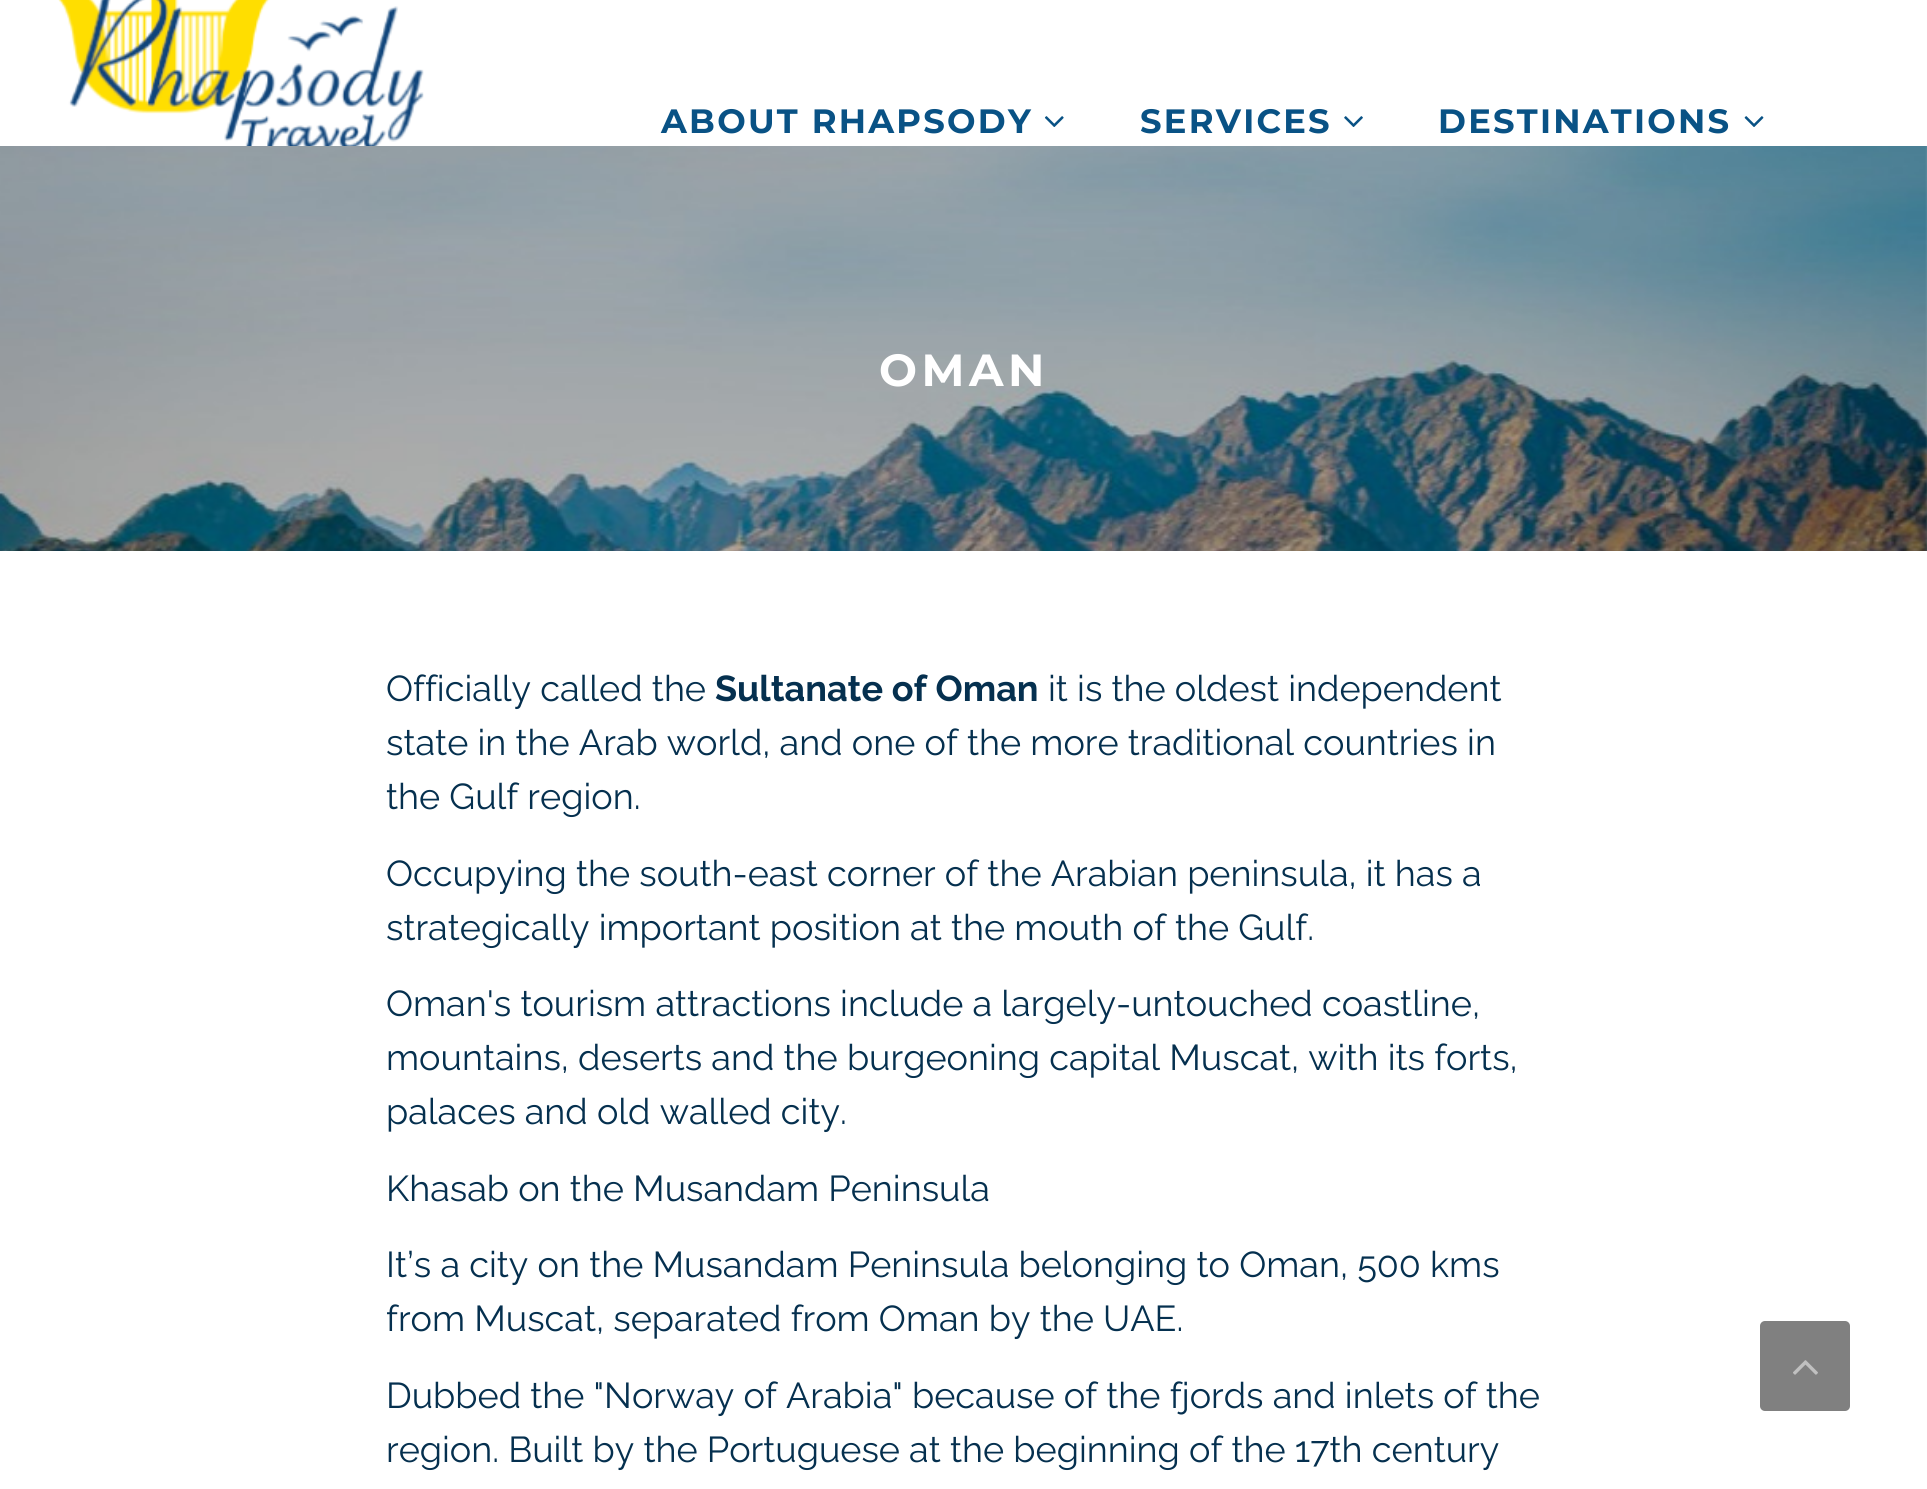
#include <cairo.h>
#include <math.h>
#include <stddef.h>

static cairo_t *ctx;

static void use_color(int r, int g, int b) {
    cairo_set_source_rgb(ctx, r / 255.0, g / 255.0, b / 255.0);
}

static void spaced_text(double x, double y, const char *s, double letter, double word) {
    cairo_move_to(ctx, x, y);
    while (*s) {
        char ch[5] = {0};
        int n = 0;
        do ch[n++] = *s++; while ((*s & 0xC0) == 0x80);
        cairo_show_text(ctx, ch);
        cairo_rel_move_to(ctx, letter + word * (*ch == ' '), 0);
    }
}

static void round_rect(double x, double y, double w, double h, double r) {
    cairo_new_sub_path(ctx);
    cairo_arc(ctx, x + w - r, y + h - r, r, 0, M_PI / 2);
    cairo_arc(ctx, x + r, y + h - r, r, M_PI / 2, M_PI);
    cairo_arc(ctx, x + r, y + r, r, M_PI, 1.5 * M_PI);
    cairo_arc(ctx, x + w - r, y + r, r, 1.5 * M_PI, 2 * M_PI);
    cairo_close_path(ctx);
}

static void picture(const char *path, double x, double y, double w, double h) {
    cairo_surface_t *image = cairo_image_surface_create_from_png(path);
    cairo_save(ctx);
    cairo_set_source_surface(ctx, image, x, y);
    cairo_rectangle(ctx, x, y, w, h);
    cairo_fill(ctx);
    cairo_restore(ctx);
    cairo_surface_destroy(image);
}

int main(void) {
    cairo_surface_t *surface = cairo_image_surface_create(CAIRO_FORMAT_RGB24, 1927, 1489);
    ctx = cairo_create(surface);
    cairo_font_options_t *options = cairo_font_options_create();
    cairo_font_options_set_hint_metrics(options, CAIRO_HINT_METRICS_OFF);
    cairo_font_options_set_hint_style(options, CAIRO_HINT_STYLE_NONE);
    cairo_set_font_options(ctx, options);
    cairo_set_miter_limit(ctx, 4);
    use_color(255, 255, 255);
    cairo_paint(ctx);
    picture("img1.png", 58, 0, 366, 146);
    cairo_select_font_face(ctx, "Montserrat", CAIRO_FONT_SLANT_NORMAL, CAIRO_FONT_WEIGHT_BOLD);
    cairo_set_font_size(ctx, 33.75);
    use_color(9, 82, 133);
    spaced_text(661, 133, "ABOUT RHAPSODY", 2.25, 0);
    picture("img2.png", 1044, 116, 20, 11);
    spaced_text(1140, 133, "SERVICES", 2.25, 0);
    picture("img3.png", 1344, 116, 19, 11);
    spaced_text(1438, 133, "DESTINATIONS", 2.25, 0);
    picture("img4.png", 1744, 116, 20, 11);
    picture("img5.png", 0, 146, 1927, 405);
    cairo_set_font_size(ctx, 45);
    use_color(255, 255, 255);
    spaced_text(879, 386, "OMAN", 4.5, 0);
    cairo_select_font_face(ctx, "Raleway", CAIRO_FONT_SLANT_NORMAL, CAIRO_FONT_WEIGHT_NORMAL);
    cairo_set_font_size(ctx, 36);
    use_color(5, 48, 79);
    cairo_move_to(ctx, 386, 701);
    cairo_show_text(ctx, "Officially called the");
    cairo_select_font_face(ctx, "Raleway", CAIRO_FONT_SLANT_NORMAL, CAIRO_FONT_WEIGHT_BOLD);
    cairo_move_to(ctx, 715, 701);
    cairo_show_text(ctx, "Sultanate of Oman");
    cairo_select_font_face(ctx, "Raleway", CAIRO_FONT_SLANT_NORMAL, CAIRO_FONT_WEIGHT_NORMAL);
    cairo_move_to(ctx, 1048, 701);
    cairo_show_text(ctx, "it is the oldest independent");
    cairo_move_to(ctx, 386, 755);
    cairo_show_text(ctx, "state in the Arab world, and one of the more traditional countries in");
    cairo_move_to(ctx, 386, 809);
    cairo_show_text(ctx, "the Gulf region.");
    cairo_move_to(ctx, 386, 886);
    cairo_show_text(ctx, "Occupying the south-east corner of the Arabian peninsula, it has a");
    cairo_move_to(ctx, 386, 940);
    cairo_show_text(ctx, "strategically important position at the mouth of the Gulf.");
    cairo_move_to(ctx, 386, 1016);
    cairo_show_text(ctx, "Oman's tourism attractions include a largely-untouched coastline,");
    cairo_move_to(ctx, 386, 1070);
    cairo_show_text(ctx, "mountains, deserts and the burgeoning capital Muscat, with its forts,");
    cairo_move_to(ctx, 386, 1124);
    cairo_show_text(ctx, "palaces and old walled city.");
    cairo_move_to(ctx, 386, 1201);
    cairo_show_text(ctx, "Khasab on the Musandam Peninsula");
    cairo_move_to(ctx, 386, 1277);
    cairo_show_text(ctx, "It’s a city on the Musandam Peninsula belonging to Oman, 500 kms");
    cairo_move_to(ctx, 386, 1331);
    cairo_show_text(ctx, "from Muscat, separated from Oman by the UAE.");
    cairo_move_to(ctx, 386, 1408);
    cairo_show_text(ctx, "Dubbed the \"Norway of Arabia\" because of the fjords and inlets of the");
    cairo_move_to(ctx, 386, 1462);
    cairo_show_text(ctx, "region. Built by the Portuguese at the beginning of the 17th century");
    use_color(128, 128, 128);
    round_rect(1760, 1321, 90, 90, 5);
    cairo_fill(ctx);
    picture("img6.png", 1793, 1360, 25, 15);
    cairo_surface_write_to_png(surface, "result.png");
    cairo_font_options_destroy(options);
    cairo_destroy(ctx);
    cairo_surface_destroy(surface);
    return 0;
}
